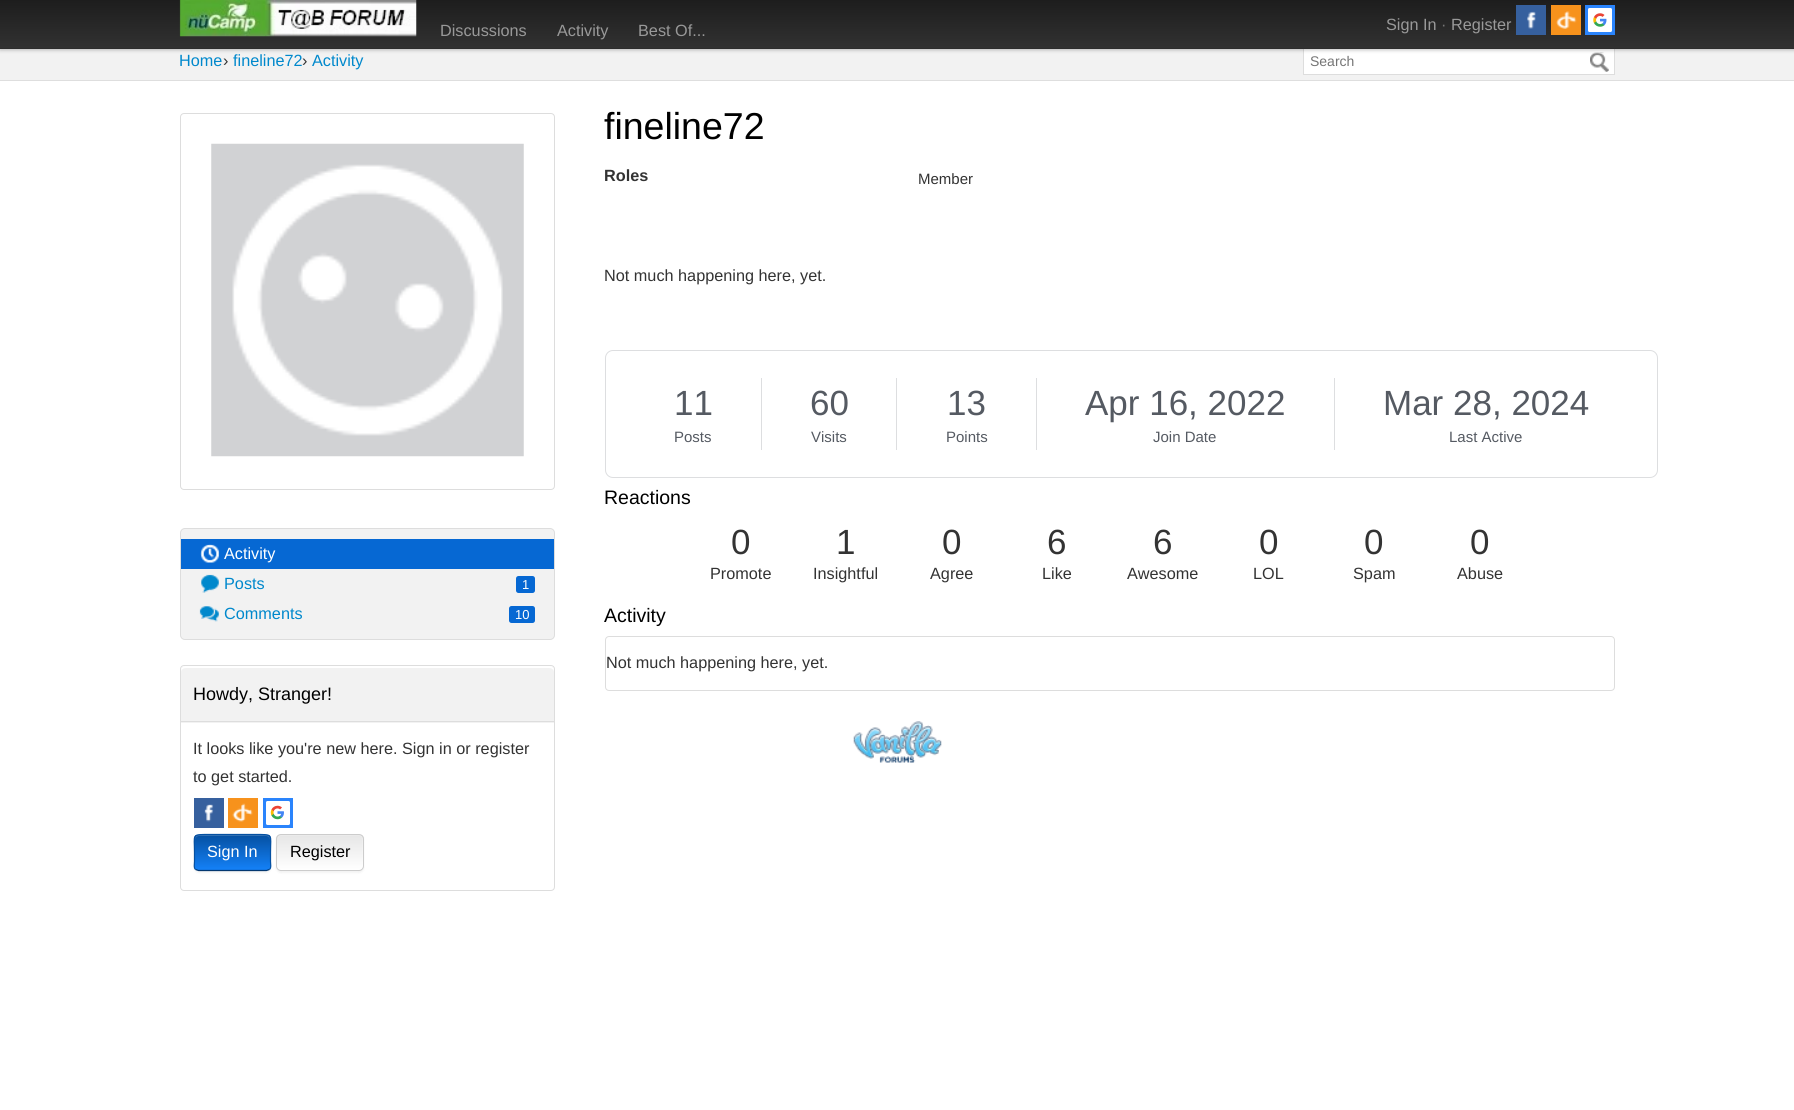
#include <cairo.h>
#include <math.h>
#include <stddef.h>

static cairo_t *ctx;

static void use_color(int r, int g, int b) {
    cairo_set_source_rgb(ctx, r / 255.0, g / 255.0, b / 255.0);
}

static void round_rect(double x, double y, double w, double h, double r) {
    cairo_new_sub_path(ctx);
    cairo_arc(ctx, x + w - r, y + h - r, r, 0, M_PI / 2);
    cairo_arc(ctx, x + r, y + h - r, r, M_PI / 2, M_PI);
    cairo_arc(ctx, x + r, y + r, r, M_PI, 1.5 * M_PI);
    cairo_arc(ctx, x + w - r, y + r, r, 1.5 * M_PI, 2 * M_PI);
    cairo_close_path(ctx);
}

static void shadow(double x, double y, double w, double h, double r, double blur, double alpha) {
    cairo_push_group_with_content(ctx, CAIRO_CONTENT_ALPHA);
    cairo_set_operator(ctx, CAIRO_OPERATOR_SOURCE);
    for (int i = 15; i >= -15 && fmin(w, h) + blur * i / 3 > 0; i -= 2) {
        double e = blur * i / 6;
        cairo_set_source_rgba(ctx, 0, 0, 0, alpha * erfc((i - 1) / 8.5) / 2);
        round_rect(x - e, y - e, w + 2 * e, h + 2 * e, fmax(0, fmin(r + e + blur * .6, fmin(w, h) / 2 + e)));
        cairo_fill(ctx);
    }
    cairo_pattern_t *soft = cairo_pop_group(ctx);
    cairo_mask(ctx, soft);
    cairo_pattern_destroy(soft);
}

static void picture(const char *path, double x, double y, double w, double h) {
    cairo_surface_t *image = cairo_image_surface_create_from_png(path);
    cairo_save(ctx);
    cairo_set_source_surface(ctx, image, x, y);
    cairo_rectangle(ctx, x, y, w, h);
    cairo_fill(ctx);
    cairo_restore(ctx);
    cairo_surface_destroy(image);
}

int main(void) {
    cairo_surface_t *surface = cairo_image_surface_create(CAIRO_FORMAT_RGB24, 1794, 1110);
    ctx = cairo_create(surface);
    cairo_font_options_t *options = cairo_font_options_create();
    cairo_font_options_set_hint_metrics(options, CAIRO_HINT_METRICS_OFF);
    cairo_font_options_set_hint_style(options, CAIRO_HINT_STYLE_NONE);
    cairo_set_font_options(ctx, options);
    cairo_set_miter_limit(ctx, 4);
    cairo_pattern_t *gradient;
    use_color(255, 255, 255);
    cairo_paint(ctx);
    use_color(242, 242, 242);
    cairo_rectangle(ctx, 0, 49, 1794, 31);
    cairo_fill(ctx);
    use_color(255, 255, 255);
    cairo_rectangle(ctx, 1303.5, 48.5, 311, 26);
    cairo_fill_preserve(ctx);
    use_color(221, 221, 221);
    cairo_set_line_width(ctx, 1);
    cairo_stroke(ctx);
    picture("img5.png", 1590, 52, 19, 20);
    cairo_set_source_rgba(ctx, 1, 1, 1, 0.2);
    cairo_new_path(ctx);
    cairo_move_to(ctx, 1595, 54);
    cairo_line_to(ctx, 1607, 54);
    cairo_curve_to(ctx, 1609, 55, 1610, 56.5, 1610, 58);
    cairo_curve_to(ctx, 1610, 52.5, 1604, 53, 1600, 53);
    cairo_curve_to(ctx, 1595, 53, 1590, 52.5, 1590, 59);
    cairo_curve_to(ctx, 1590, 56.5, 1591.5, 54, 1595, 54);
    cairo_close_path(ctx);
    cairo_fill(ctx);
    use_color(0, 0, 0);
    shadow(0, 1, 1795, 49, 0, 2, 0.25);
    gradient = cairo_pattern_create_linear(898, 49, 898, 0);
    cairo_pattern_add_color_stop_rgba(gradient, 0, 0.196, 0.196, 0.196, 1);
    cairo_pattern_add_color_stop_rgba(gradient, 1, 0.114, 0.114, 0.114, 1);
    cairo_set_source(ctx, gradient);
    cairo_pattern_destroy(gradient);
    cairo_rectangle(ctx, 0, 0, 1794, 48);
    cairo_fill(ctx);
    use_color(45, 45, 45);
    cairo_rectangle(ctx, 0, 48, 1794, 1);
    cairo_fill(ctx);
    picture("img1.png", 179, 0, 238, 37);
    cairo_select_font_face(ctx, "Liberation Sans", CAIRO_FONT_SLANT_NORMAL, CAIRO_FONT_WEIGHT_NORMAL);
    cairo_set_font_size(ctx, 16.25);
    use_color(153, 153, 153);
    cairo_move_to(ctx, 440, 36);
    cairo_show_text(ctx, "Discussions");
    cairo_move_to(ctx, 557, 36);
    cairo_show_text(ctx, "Activity");
    cairo_move_to(ctx, 638, 36);
    cairo_show_text(ctx, "Best Of...");
    cairo_move_to(ctx, 1386, 30);
    cairo_show_text(ctx, "Sign In");
    use_color(117, 117, 117);
    cairo_move_to(ctx, 1441, 30);
    cairo_show_text(ctx, "·");
    use_color(153, 153, 153);
    cairo_move_to(ctx, 1451, 30);
    cairo_show_text(ctx, "Register");
    use_color(54, 96, 158);
    cairo_rectangle(ctx, 1516, 5, 30, 30);
    cairo_fill(ctx);
    picture("img2.png", 1527, 11, 9, 18);
    use_color(247, 146, 28);
    cairo_rectangle(ctx, 1551, 5, 30, 30);
    cairo_fill(ctx);
    picture("img3.png", 1556, 11, 21, 18);
    picture("img4.png", 1585, 5, 30, 30);
    use_color(222, 222, 222);
    cairo_rectangle(ctx, 0, 80, 1794, 1);
    cairo_fill(ctx);
    use_color(0, 136, 204);
    cairo_move_to(ctx, 179, 66);
    cairo_show_text(ctx, "Home");
    use_color(51, 51, 51);
    cairo_move_to(ctx, 223, 66);
    cairo_show_text(ctx, "›");
    use_color(0, 136, 204);
    cairo_move_to(ctx, 233, 66);
    cairo_show_text(ctx, "fineline72");
    use_color(51, 51, 51);
    cairo_move_to(ctx, 302, 66);
    cairo_show_text(ctx, "›");
    use_color(0, 136, 204);
    cairo_move_to(ctx, 312, 66);
    cairo_show_text(ctx, "Activity");
    cairo_set_font_size(ctx, 14);
    use_color(117, 117, 117);
    cairo_move_to(ctx, 1310, 66);
    cairo_show_text(ctx, "Search");
    cairo_set_font_size(ctx, 37.5);
    use_color(0, 0, 0);
    cairo_move_to(ctx, 604, 139);
    cairo_show_text(ctx, "fineline72");
    cairo_select_font_face(ctx, "Liberation Sans", CAIRO_FONT_SLANT_NORMAL, CAIRO_FONT_WEIGHT_BOLD);
    cairo_set_font_size(ctx, 16.25);
    use_color(51, 51, 51);
    cairo_move_to(ctx, 604, 181);
    cairo_show_text(ctx, "Roles");
    cairo_select_font_face(ctx, "Liberation Sans", CAIRO_FONT_SLANT_NORMAL, CAIRO_FONT_WEIGHT_NORMAL);
    cairo_set_font_size(ctx, 15);
    cairo_move_to(ctx, 918, 184);
    cairo_show_text(ctx, "Member");
    cairo_set_font_size(ctx, 16.25);
    cairo_move_to(ctx, 604, 281);
    cairo_show_text(ctx, "Not much happening here, yet.");
    round_rect(605.5, 350.5, 1052, 127, 7.5);
    use_color(221, 222, 224);
    cairo_stroke(ctx);
    cairo_rectangle(ctx, 761, 378, 1, 72);
    cairo_fill(ctx);
    cairo_set_font_size(ctx, 35);
    use_color(85, 90, 98);
    cairo_move_to(ctx, 674, 415);
    cairo_show_text(ctx, "11");
    cairo_set_font_size(ctx, 15);
    cairo_move_to(ctx, 674, 442);
    cairo_show_text(ctx, "Posts");
    use_color(221, 222, 224);
    cairo_rectangle(ctx, 896, 378, 1, 72);
    cairo_fill(ctx);
    cairo_set_font_size(ctx, 35);
    use_color(85, 90, 98);
    cairo_move_to(ctx, 810, 415);
    cairo_show_text(ctx, "60");
    cairo_set_font_size(ctx, 15);
    cairo_move_to(ctx, 811, 442);
    cairo_show_text(ctx, "Visits");
    use_color(221, 222, 224);
    cairo_rectangle(ctx, 1036, 378, 1, 72);
    cairo_fill(ctx);
    cairo_set_font_size(ctx, 35);
    use_color(85, 90, 98);
    cairo_move_to(ctx, 947, 415);
    cairo_show_text(ctx, "13");
    cairo_set_font_size(ctx, 15);
    cairo_move_to(ctx, 946, 442);
    cairo_show_text(ctx, "Points");
    use_color(221, 222, 224);
    cairo_rectangle(ctx, 1334, 378, 1, 72);
    cairo_fill(ctx);
    cairo_set_font_size(ctx, 35);
    use_color(85, 90, 98);
    cairo_move_to(ctx, 1085, 415);
    cairo_show_text(ctx, "Apr 16, 2022");
    cairo_set_font_size(ctx, 15);
    cairo_move_to(ctx, 1153, 442);
    cairo_show_text(ctx, "Join Date");
    cairo_set_font_size(ctx, 35);
    cairo_move_to(ctx, 1383, 415);
    cairo_show_text(ctx, "Mar 28, 2024");
    cairo_set_font_size(ctx, 15);
    cairo_move_to(ctx, 1449, 442);
    cairo_show_text(ctx, "Last Active");
    cairo_set_font_size(ctx, 19.5);
    use_color(0, 0, 0);
    cairo_move_to(ctx, 604, 504);
    cairo_show_text(ctx, "Reactions");
    cairo_set_font_size(ctx, 35);
    use_color(51, 51, 51);
    cairo_move_to(ctx, 731, 554);
    cairo_show_text(ctx, "0");
    cairo_set_font_size(ctx, 16.25);
    cairo_move_to(ctx, 710, 579);
    cairo_show_text(ctx, "Promote");
    cairo_set_font_size(ctx, 35);
    cairo_move_to(ctx, 836, 554);
    cairo_show_text(ctx, "1");
    cairo_set_font_size(ctx, 16.25);
    cairo_move_to(ctx, 813, 579);
    cairo_show_text(ctx, "Insightful");
    cairo_set_font_size(ctx, 35);
    cairo_move_to(ctx, 942, 554);
    cairo_show_text(ctx, "0");
    cairo_set_font_size(ctx, 16.25);
    cairo_move_to(ctx, 930, 579);
    cairo_show_text(ctx, "Agree");
    cairo_set_font_size(ctx, 35);
    cairo_move_to(ctx, 1047, 554);
    cairo_show_text(ctx, "6");
    cairo_set_font_size(ctx, 16.25);
    cairo_move_to(ctx, 1042, 579);
    cairo_show_text(ctx, "Like");
    cairo_set_font_size(ctx, 35);
    cairo_move_to(ctx, 1153, 554);
    cairo_show_text(ctx, "6");
    cairo_set_font_size(ctx, 16.25);
    cairo_move_to(ctx, 1127, 579);
    cairo_show_text(ctx, "Awesome");
    cairo_set_font_size(ctx, 35);
    cairo_move_to(ctx, 1259, 554);
    cairo_show_text(ctx, "0");
    cairo_set_font_size(ctx, 16.25);
    cairo_move_to(ctx, 1253, 579);
    cairo_show_text(ctx, "LOL");
    cairo_set_font_size(ctx, 35);
    cairo_move_to(ctx, 1364, 554);
    cairo_show_text(ctx, "0");
    cairo_set_font_size(ctx, 16.25);
    cairo_move_to(ctx, 1353, 579);
    cairo_show_text(ctx, "Spam");
    cairo_set_font_size(ctx, 35);
    cairo_move_to(ctx, 1470, 554);
    cairo_show_text(ctx, "0");
    cairo_set_font_size(ctx, 16.25);
    cairo_move_to(ctx, 1457, 579);
    cairo_show_text(ctx, "Abuse");
    cairo_set_font_size(ctx, 19.5);
    use_color(0, 0, 0);
    cairo_move_to(ctx, 604, 622);
    cairo_show_text(ctx, "Activity");
    round_rect(605.5, 636.5, 1009, 54, 3.5);
    use_color(221, 221, 221);
    cairo_stroke(ctx);
    cairo_set_font_size(ctx, 16.25);
    use_color(51, 51, 51);
    cairo_move_to(ctx, 606, 668);
    cairo_show_text(ctx, "Not much happening here, yet.");
    round_rect(180.5, 113.5, 374, 376, 3.5);
    use_color(221, 221, 221);
    cairo_stroke(ctx);
    picture("img6.png", 211, 143, 313, 314);
    use_color(242, 242, 242);
    round_rect(180.5, 528.5, 374, 111, 4.5);
    cairo_fill_preserve(ctx);
    use_color(221, 221, 221);
    cairo_stroke(ctx);
    use_color(6, 104, 211);
    cairo_rectangle(ctx, 181, 539, 373, 30);
    cairo_fill(ctx);
    picture("img7.png", 200, 544, 19, 19);
    use_color(255, 255, 255);
    cairo_move_to(ctx, 224, 559);
    cairo_show_text(ctx, "Activity");
    picture("img8.png", 201, 574, 18, 19);
    use_color(0, 136, 204);
    cairo_move_to(ctx, 224, 589);
    cairo_show_text(ctx, "Posts");
    use_color(6, 104, 211);
    round_rect(516, 576, 19, 17, 2.5);
    cairo_fill(ctx);
    cairo_set_font_size(ctx, 13);
    use_color(255, 255, 255);
    cairo_move_to(ctx, 522, 589);
    cairo_show_text(ctx, "1");
    picture("img9.png", 199, 606, 20, 16);
    cairo_set_font_size(ctx, 16.25);
    use_color(0, 136, 204);
    cairo_move_to(ctx, 224, 619);
    cairo_show_text(ctx, "Comments");
    use_color(6, 104, 211);
    round_rect(509, 606, 26, 17, 2.5);
    cairo_fill(ctx);
    cairo_set_font_size(ctx, 13);
    use_color(255, 255, 255);
    cairo_move_to(ctx, 515, 619);
    cairo_show_text(ctx, "10");
    round_rect(180.5, 665.5, 374, 225, 3.5);
    use_color(221, 221, 221);
    cairo_stroke(ctx);
    use_color(242, 242, 242);
    cairo_new_path(ctx);
    cairo_move_to(ctx, 186, 666);
    cairo_line_to(ctx, 549, 666);
    cairo_curve_to(ctx, 552, 666, 554, 668, 554, 671);
    cairo_line_to(ctx, 554, 723);
    cairo_line_to(ctx, 181, 723);
    cairo_line_to(ctx, 181, 671);
    cairo_curve_to(ctx, 181, 668, 183, 666, 186, 666);
    cairo_close_path(ctx);
    cairo_fill(ctx);
    use_color(255, 255, 255);
    cairo_new_path(ctx);
    cairo_move_to(ctx, 186, 668);
    cairo_line_to(ctx, 549, 668);
    cairo_curve_to(ctx, 552, 668, 554, 670, 554, 672);
    cairo_line_to(ctx, 554, 671);
    cairo_curve_to(ctx, 554, 668, 552, 666, 549, 666);
    cairo_line_to(ctx, 186, 666);
    cairo_curve_to(ctx, 183, 666, 181, 668, 181, 671);
    cairo_line_to(ctx, 181, 672);
    cairo_curve_to(ctx, 181, 670, 183, 668, 186, 668);
    cairo_close_path(ctx);
    cairo_fill(ctx);
    use_color(221, 221, 221);
    cairo_rectangle(ctx, 181, 721, 373, 1);
    cairo_fill(ctx);
    cairo_set_font_size(ctx, 18);
    use_color(0, 0, 0);
    cairo_move_to(ctx, 193, 700);
    cairo_show_text(ctx, "Howdy, Stranger!");
    cairo_set_font_size(ctx, 16.25);
    use_color(51, 51, 51);
    cairo_move_to(ctx, 193, 754);
    cairo_show_text(ctx, "It looks like you're new here. Sign in or register");
    cairo_move_to(ctx, 193, 782);
    cairo_show_text(ctx, "to get started.");
    use_color(54, 96, 158);
    cairo_rectangle(ctx, 194, 798, 30, 30);
    cairo_fill(ctx);
    picture("img10.png", 204, 804, 10, 18);
    use_color(247, 146, 28);
    cairo_rectangle(ctx, 228, 798, 30, 30);
    cairo_fill(ctx);
    picture("img11.png", 232, 803, 21, 19);
    picture("img12.png", 263, 798, 30, 30);
    use_color(0, 0, 0);
    shadow(194, 835, 77, 38, 5, 1, 0.05);
    cairo_save(ctx);
    round_rect(194, 834, 77, 37, 5);
    cairo_clip(ctx);
    gradient = cairo_pattern_create_linear(233, 870, 233, 835);
    cairo_pattern_add_color_stop_rgba(gradient, 0, 0.078, 0.506, 0.973, 1);
    cairo_pattern_add_color_stop_rgba(gradient, 1, 0.02, 0.314, 0.631, 1);
    cairo_set_source(ctx, gradient);
    cairo_pattern_destroy(gradient);
    cairo_rectangle(ctx, 194, 835, 77, 35);
    cairo_fill(ctx);
    cairo_restore(ctx);
    cairo_set_source_rgba(ctx, 1, 1, 1, 0.2);
    cairo_new_path(ctx);
    cairo_move_to(ctx, 199, 836);
    cairo_line_to(ctx, 266, 836);
    cairo_curve_to(ctx, 268, 836, 270, 838, 270, 840);
    cairo_curve_to(ctx, 270, 832, 260, 835, 255, 835);
    cairo_line_to(ctx, 210, 835);
    cairo_curve_to(ctx, 205, 835, 195, 832, 195, 840);
    cairo_curve_to(ctx, 195, 838, 197, 836, 199, 836);
    cairo_close_path(ctx);
    cairo_fill(ctx);
    cairo_new_path(ctx);
    cairo_move_to(ctx, 269.5, 869.5);
    cairo_line_to(ctx, 266.5, 870.5);
    cairo_line_to(ctx, 198.5, 870.5);
    cairo_line_to(ctx, 195.5, 869.5);
    use_color(3, 55, 112);
    cairo_set_line_width(ctx, 1.2);
    cairo_stroke(ctx);
    cairo_new_path(ctx);
    cairo_move_to(ctx, 195.5, 869.5);
    cairo_curve_to(ctx, 193.5, 867.5, 194.5, 864, 194.5, 861.5);
    cairo_line_to(ctx, 194.5, 852.5);
    cairo_curve_to(ctx, 194.5, 833.5, 191, 834.5, 210, 834.5);
    cairo_line_to(ctx, 255, 834.5);
    cairo_curve_to(ctx, 274, 834.5, 270.5, 833.5, 270.5, 852.5);
    cairo_line_to(ctx, 270.5, 861.5);
    cairo_curve_to(ctx, 270.5, 864, 271.5, 867.5, 269.5, 869.5);
    use_color(5, 80, 161);
    cairo_stroke(ctx);
    use_color(255, 255, 255);
    cairo_move_to(ctx, 207, 857);
    cairo_show_text(ctx, "Sign In");
    use_color(0, 0, 0);
    shadow(276, 835, 88, 38, 5, 1, 0.05);
    cairo_save(ctx);
    round_rect(276, 834, 88, 37, 5);
    cairo_clip(ctx);
    gradient = cairo_pattern_create_linear(320, 870, 320, 835);
    cairo_pattern_add_color_stop_rgba(gradient, 0, 1, 1, 1, 1);
    cairo_pattern_add_color_stop_rgba(gradient, 1, 0.902, 0.902, 0.902, 1);
    cairo_set_source(ctx, gradient);
    cairo_pattern_destroy(gradient);
    cairo_rectangle(ctx, 276, 835, 88, 35);
    cairo_fill(ctx);
    cairo_restore(ctx);
    cairo_set_source_rgba(ctx, 1, 1, 1, 0.2);
    cairo_new_path(ctx);
    cairo_move_to(ctx, 281, 836);
    cairo_line_to(ctx, 346, 836);
    cairo_curve_to(ctx, 364, 836, 362, 833, 362, 849);
    cairo_line_to(ctx, 362, 869);
    cairo_curve_to(ctx, 364, 866, 363, 856, 363, 852);
    cairo_curve_to(ctx, 363, 833, 366, 835, 346, 835);
    cairo_line_to(ctx, 295, 835);
    cairo_curve_to(ctx, 294, 835, 280, 832, 278, 837);
    cairo_line_to(ctx, 278, 840);
    cairo_curve_to(ctx, 278, 838, 279, 836, 281, 836);
    cairo_close_path(ctx);
    cairo_fill(ctx);
    round_rect(276.5, 834.5, 87, 36, 4.5);
    use_color(204, 204, 204);
    cairo_set_line_width(ctx, 1);
    cairo_stroke(ctx);
    use_color(0, 0, 0);
    cairo_move_to(ctx, 290, 857);
    cairo_show_text(ctx, "Register");
    picture("img13.png", 853, 721, 89, 42);
    cairo_surface_write_to_png(surface, "result.png");
    cairo_font_options_destroy(options);
    cairo_destroy(ctx);
    cairo_surface_destroy(surface);
    return 0;
}
